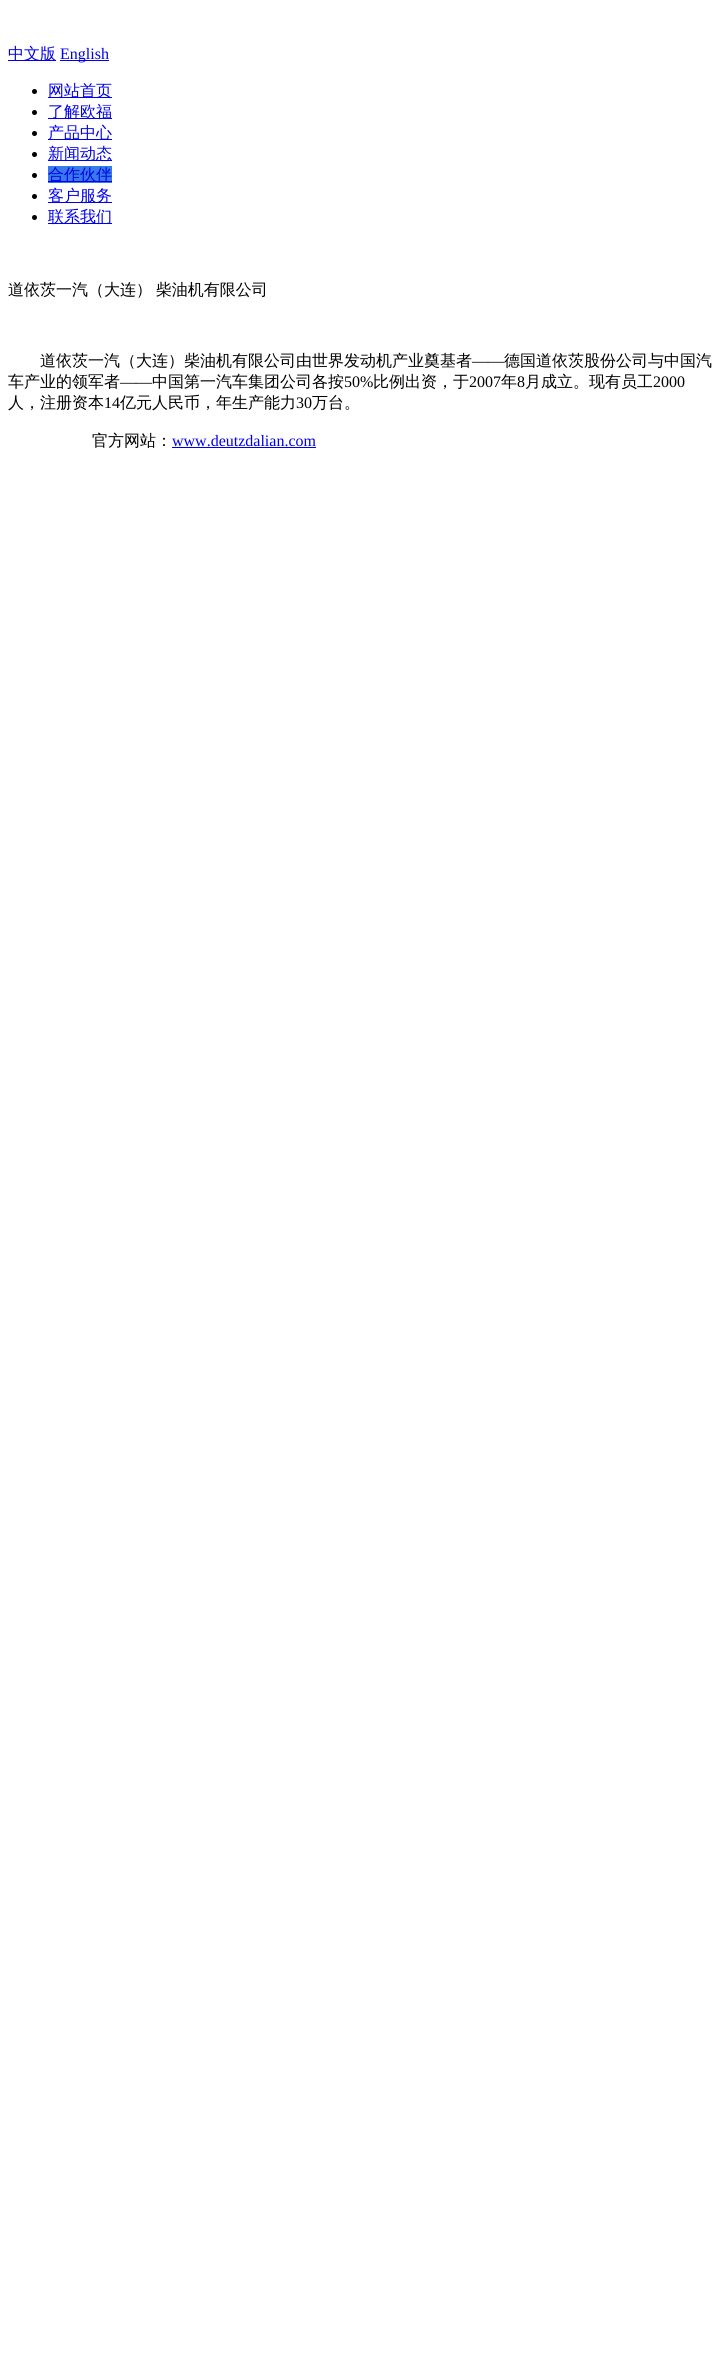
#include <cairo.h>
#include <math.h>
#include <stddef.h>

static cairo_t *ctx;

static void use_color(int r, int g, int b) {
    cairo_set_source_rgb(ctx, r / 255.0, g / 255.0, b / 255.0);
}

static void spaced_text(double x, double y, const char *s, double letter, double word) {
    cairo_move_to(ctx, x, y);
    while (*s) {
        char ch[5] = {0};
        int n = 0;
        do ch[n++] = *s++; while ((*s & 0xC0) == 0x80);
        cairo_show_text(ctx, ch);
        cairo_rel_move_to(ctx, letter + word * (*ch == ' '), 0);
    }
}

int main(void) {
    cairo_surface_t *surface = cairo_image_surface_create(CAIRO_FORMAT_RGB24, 723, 2366);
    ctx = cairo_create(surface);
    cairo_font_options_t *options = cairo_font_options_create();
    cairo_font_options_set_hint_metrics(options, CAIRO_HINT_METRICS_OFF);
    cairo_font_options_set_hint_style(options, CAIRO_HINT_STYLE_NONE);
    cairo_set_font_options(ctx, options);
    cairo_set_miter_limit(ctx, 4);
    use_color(255, 255, 255);
    cairo_paint(ctx);
    use_color(0, 0, 238);
    cairo_rectangle(ctx, 8, 60, 48, 1);
    cairo_fill(ctx);
    cairo_select_font_face(ctx, "WenQuanYi Zen Hei Medium", CAIRO_FONT_SLANT_NORMAL, CAIRO_FONT_WEIGHT_NORMAL);
    cairo_set_font_size(ctx, 16);
    cairo_move_to(ctx, 8, 59);
    cairo_show_text(ctx, "中文版");
    cairo_rectangle(ctx, 60, 60, 49, 1);
    cairo_fill(ctx);
    cairo_select_font_face(ctx, "Liberation Serif", CAIRO_FONT_SLANT_NORMAL, CAIRO_FONT_WEIGHT_NORMAL);
    cairo_move_to(ctx, 60, 59);
    cairo_show_text(ctx, "English");
    use_color(0, 0, 0);
    cairo_new_path(ctx);
    cairo_arc(ctx, 34.5, 91.5, 2.5, 0, 2 * M_PI);
    cairo_fill(ctx);
    use_color(0, 0, 238);
    cairo_rectangle(ctx, 48, 97, 64, 1);
    cairo_fill(ctx);
    cairo_select_font_face(ctx, "WenQuanYi Zen Hei Medium", CAIRO_FONT_SLANT_NORMAL, CAIRO_FONT_WEIGHT_NORMAL);
    cairo_move_to(ctx, 48, 96);
    cairo_show_text(ctx, "网站首页");
    use_color(0, 0, 0);
    cairo_new_path(ctx);
    cairo_arc(ctx, 34.5, 112.5, 2.5, 0, 2 * M_PI);
    cairo_fill(ctx);
    use_color(0, 0, 238);
    cairo_rectangle(ctx, 48, 118, 64, 1);
    cairo_fill(ctx);
    cairo_move_to(ctx, 48, 117);
    cairo_show_text(ctx, "了解欧福");
    use_color(0, 0, 0);
    cairo_new_path(ctx);
    cairo_arc(ctx, 34.5, 133.5, 2.5, 0, 2 * M_PI);
    cairo_fill(ctx);
    use_color(0, 0, 238);
    cairo_rectangle(ctx, 48, 139, 64, 1);
    cairo_fill(ctx);
    cairo_move_to(ctx, 48, 138);
    cairo_show_text(ctx, "产品中心");
    use_color(0, 0, 0);
    cairo_new_path(ctx);
    cairo_arc(ctx, 34.5, 154.5, 2.5, 0, 2 * M_PI);
    cairo_fill(ctx);
    use_color(0, 0, 238);
    cairo_rectangle(ctx, 48, 160, 64, 1);
    cairo_fill(ctx);
    cairo_move_to(ctx, 48, 159);
    cairo_show_text(ctx, "新闻动态");
    use_color(0, 0, 0);
    cairo_new_path(ctx);
    cairo_arc(ctx, 34.5, 175.5, 2.5, 0, 2 * M_PI);
    cairo_fill(ctx);
    use_color(56, 122, 232);
    cairo_rectangle(ctx, 48, 166, 64, 17);
    cairo_fill(ctx);
    use_color(0, 0, 238);
    cairo_rectangle(ctx, 48, 181, 64, 1);
    cairo_fill(ctx);
    cairo_move_to(ctx, 48, 180);
    cairo_show_text(ctx, "合作伙伴");
    use_color(0, 0, 0);
    cairo_new_path(ctx);
    cairo_arc(ctx, 34.5, 196.5, 2.5, 0, 2 * M_PI);
    cairo_fill(ctx);
    use_color(0, 0, 238);
    cairo_rectangle(ctx, 48, 202, 64, 1);
    cairo_fill(ctx);
    cairo_move_to(ctx, 48, 201);
    cairo_show_text(ctx, "客户服务");
    use_color(0, 0, 0);
    cairo_new_path(ctx);
    cairo_arc(ctx, 34.5, 217.5, 2.5, 0, 2 * M_PI);
    cairo_fill(ctx);
    use_color(0, 0, 238);
    cairo_rectangle(ctx, 48, 223, 64, 1);
    cairo_fill(ctx);
    cairo_move_to(ctx, 48, 222);
    cairo_show_text(ctx, "联系我们");
    use_color(0, 0, 0);
    spaced_text(8, 295, "道依茨一汽（大连） 柴油机有限公司", 0, -1);
    cairo_move_to(ctx, 40, 366);
    cairo_show_text(ctx, "道依茨一汽（大连）柴油机有限公司由世界发动机产业奠基者");
    cairo_select_font_face(ctx, "Liberation Serif", CAIRO_FONT_SLANT_NORMAL, CAIRO_FONT_WEIGHT_NORMAL);
    cairo_move_to(ctx, 472, 366);
    cairo_show_text(ctx, "——");
    cairo_select_font_face(ctx, "WenQuanYi Zen Hei Medium", CAIRO_FONT_SLANT_NORMAL, CAIRO_FONT_WEIGHT_NORMAL);
    cairo_move_to(ctx, 504, 366);
    cairo_show_text(ctx, "德国道依茨股份公司与中国汽");
    cairo_move_to(ctx, 8, 387);
    cairo_show_text(ctx, "车产业的领军者");
    cairo_select_font_face(ctx, "Liberation Serif", CAIRO_FONT_SLANT_NORMAL, CAIRO_FONT_WEIGHT_NORMAL);
    cairo_move_to(ctx, 120, 387);
    cairo_show_text(ctx, "——");
    cairo_select_font_face(ctx, "WenQuanYi Zen Hei Medium", CAIRO_FONT_SLANT_NORMAL, CAIRO_FONT_WEIGHT_NORMAL);
    cairo_move_to(ctx, 152, 387);
    cairo_show_text(ctx, "中国第一汽车集团公司各按");
    cairo_select_font_face(ctx, "Liberation Serif", CAIRO_FONT_SLANT_NORMAL, CAIRO_FONT_WEIGHT_NORMAL);
    cairo_move_to(ctx, 344, 387);
    cairo_show_text(ctx, "50%");
    cairo_select_font_face(ctx, "WenQuanYi Zen Hei Medium", CAIRO_FONT_SLANT_NORMAL, CAIRO_FONT_WEIGHT_NORMAL);
    cairo_move_to(ctx, 373, 387);
    cairo_show_text(ctx, "比例出资，于");
    cairo_select_font_face(ctx, "Liberation Serif", CAIRO_FONT_SLANT_NORMAL, CAIRO_FONT_WEIGHT_NORMAL);
    cairo_move_to(ctx, 469, 387);
    cairo_show_text(ctx, "2007");
    cairo_select_font_face(ctx, "WenQuanYi Zen Hei Medium", CAIRO_FONT_SLANT_NORMAL, CAIRO_FONT_WEIGHT_NORMAL);
    cairo_move_to(ctx, 501, 387);
    cairo_show_text(ctx, "年");
    cairo_select_font_face(ctx, "Liberation Serif", CAIRO_FONT_SLANT_NORMAL, CAIRO_FONT_WEIGHT_NORMAL);
    cairo_move_to(ctx, 517, 387);
    cairo_show_text(ctx, "8");
    cairo_select_font_face(ctx, "WenQuanYi Zen Hei Medium", CAIRO_FONT_SLANT_NORMAL, CAIRO_FONT_WEIGHT_NORMAL);
    cairo_move_to(ctx, 525, 387);
    cairo_show_text(ctx, "月成立。现有员工");
    cairo_select_font_face(ctx, "Liberation Serif", CAIRO_FONT_SLANT_NORMAL, CAIRO_FONT_WEIGHT_NORMAL);
    cairo_move_to(ctx, 653, 387);
    cairo_show_text(ctx, "2000");
    cairo_select_font_face(ctx, "WenQuanYi Zen Hei Medium", CAIRO_FONT_SLANT_NORMAL, CAIRO_FONT_WEIGHT_NORMAL);
    cairo_move_to(ctx, 8, 408);
    cairo_show_text(ctx, "人，注册资本");
    cairo_select_font_face(ctx, "Liberation Serif", CAIRO_FONT_SLANT_NORMAL, CAIRO_FONT_WEIGHT_NORMAL);
    cairo_move_to(ctx, 104, 408);
    cairo_show_text(ctx, "14");
    cairo_select_font_face(ctx, "WenQuanYi Zen Hei Medium", CAIRO_FONT_SLANT_NORMAL, CAIRO_FONT_WEIGHT_NORMAL);
    cairo_move_to(ctx, 120, 408);
    cairo_show_text(ctx, "亿元人民币，年生产能力");
    cairo_select_font_face(ctx, "Liberation Serif", CAIRO_FONT_SLANT_NORMAL, CAIRO_FONT_WEIGHT_NORMAL);
    cairo_move_to(ctx, 296, 408);
    cairo_show_text(ctx, "30");
    cairo_select_font_face(ctx, "WenQuanYi Zen Hei Medium", CAIRO_FONT_SLANT_NORMAL, CAIRO_FONT_WEIGHT_NORMAL);
    cairo_move_to(ctx, 312, 408);
    cairo_show_text(ctx, "万台。");
    cairo_move_to(ctx, 92, 446);
    cairo_show_text(ctx, "官方网站：");
    cairo_select_font_face(ctx, "Liberation Serif", CAIRO_FONT_SLANT_NORMAL, CAIRO_FONT_WEIGHT_NORMAL);
    use_color(0, 0, 238);
    cairo_move_to(ctx, 172, 446);
    cairo_show_text(ctx, "www.deutzdalian.com");
    cairo_rectangle(ctx, 172, 447, 144, 1);
    cairo_fill(ctx);
    cairo_surface_write_to_png(surface, "result.png");
    cairo_font_options_destroy(options);
    cairo_destroy(ctx);
    cairo_surface_destroy(surface);
    return 0;
}
